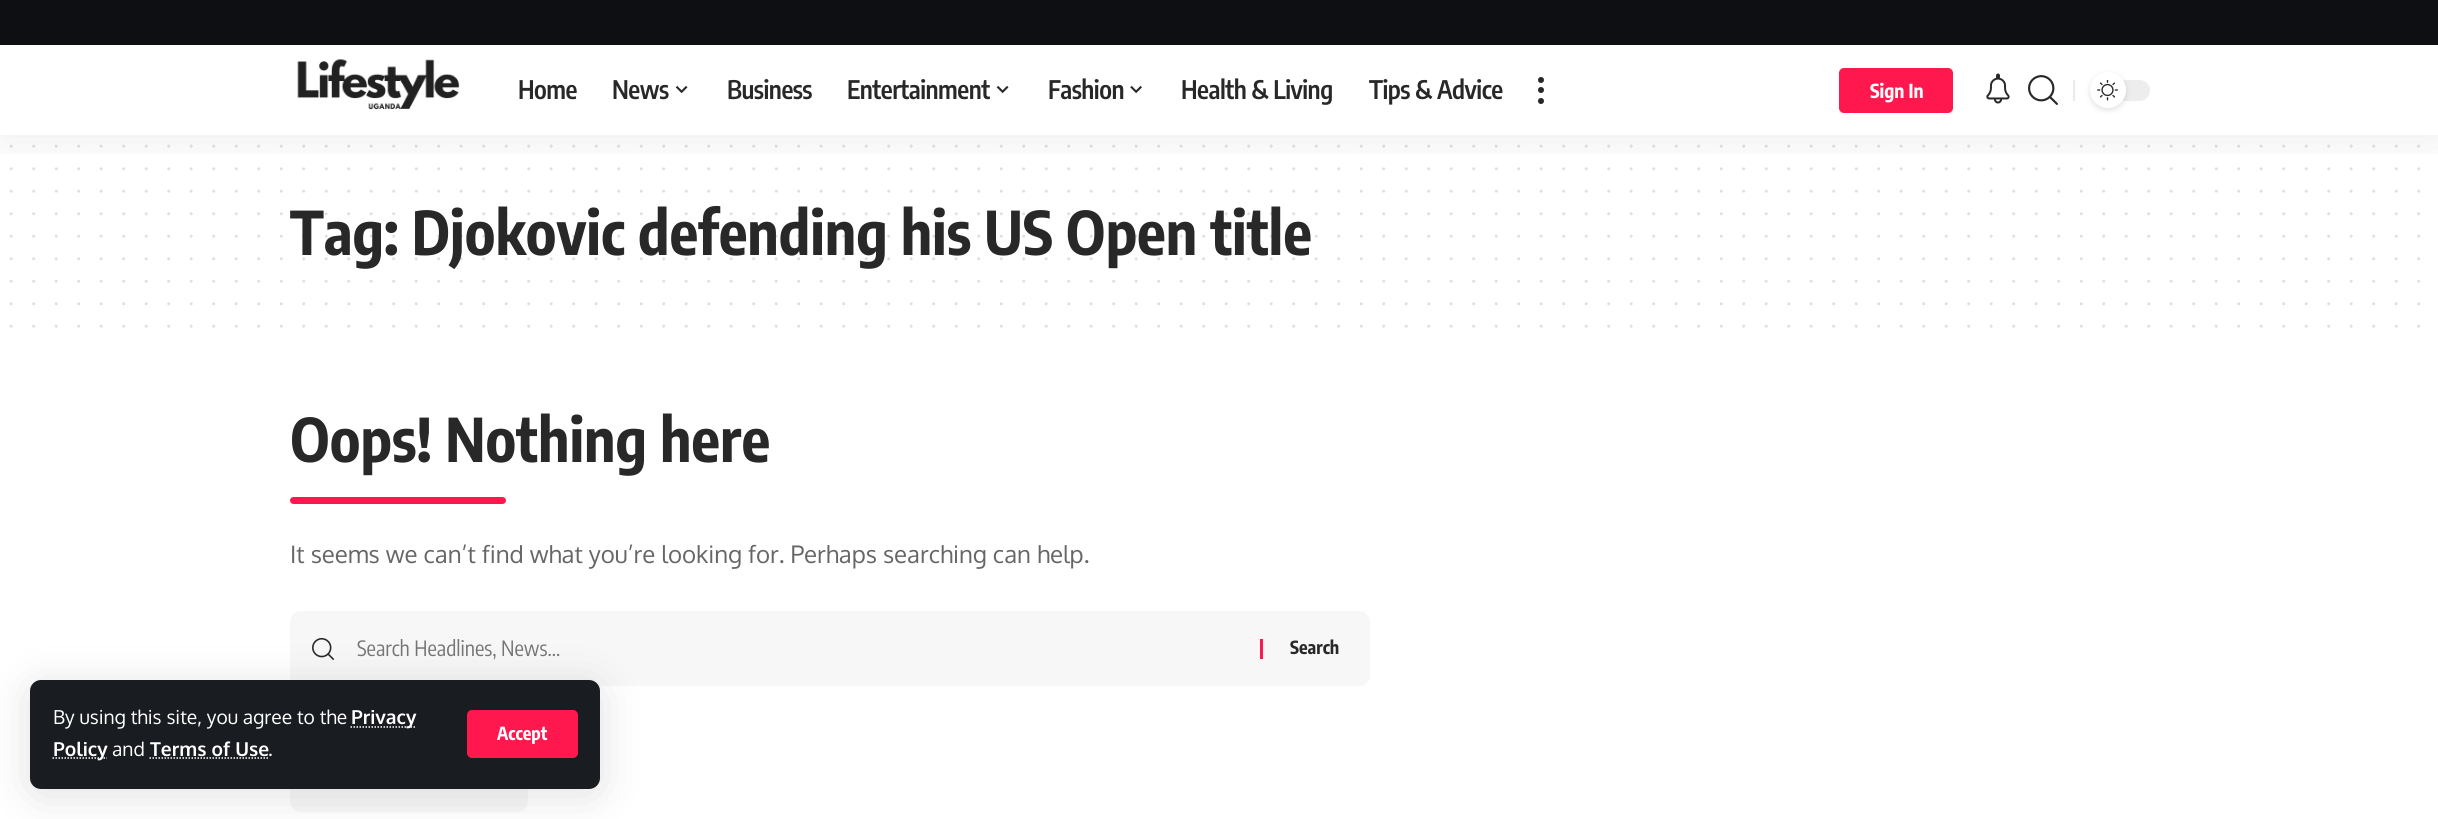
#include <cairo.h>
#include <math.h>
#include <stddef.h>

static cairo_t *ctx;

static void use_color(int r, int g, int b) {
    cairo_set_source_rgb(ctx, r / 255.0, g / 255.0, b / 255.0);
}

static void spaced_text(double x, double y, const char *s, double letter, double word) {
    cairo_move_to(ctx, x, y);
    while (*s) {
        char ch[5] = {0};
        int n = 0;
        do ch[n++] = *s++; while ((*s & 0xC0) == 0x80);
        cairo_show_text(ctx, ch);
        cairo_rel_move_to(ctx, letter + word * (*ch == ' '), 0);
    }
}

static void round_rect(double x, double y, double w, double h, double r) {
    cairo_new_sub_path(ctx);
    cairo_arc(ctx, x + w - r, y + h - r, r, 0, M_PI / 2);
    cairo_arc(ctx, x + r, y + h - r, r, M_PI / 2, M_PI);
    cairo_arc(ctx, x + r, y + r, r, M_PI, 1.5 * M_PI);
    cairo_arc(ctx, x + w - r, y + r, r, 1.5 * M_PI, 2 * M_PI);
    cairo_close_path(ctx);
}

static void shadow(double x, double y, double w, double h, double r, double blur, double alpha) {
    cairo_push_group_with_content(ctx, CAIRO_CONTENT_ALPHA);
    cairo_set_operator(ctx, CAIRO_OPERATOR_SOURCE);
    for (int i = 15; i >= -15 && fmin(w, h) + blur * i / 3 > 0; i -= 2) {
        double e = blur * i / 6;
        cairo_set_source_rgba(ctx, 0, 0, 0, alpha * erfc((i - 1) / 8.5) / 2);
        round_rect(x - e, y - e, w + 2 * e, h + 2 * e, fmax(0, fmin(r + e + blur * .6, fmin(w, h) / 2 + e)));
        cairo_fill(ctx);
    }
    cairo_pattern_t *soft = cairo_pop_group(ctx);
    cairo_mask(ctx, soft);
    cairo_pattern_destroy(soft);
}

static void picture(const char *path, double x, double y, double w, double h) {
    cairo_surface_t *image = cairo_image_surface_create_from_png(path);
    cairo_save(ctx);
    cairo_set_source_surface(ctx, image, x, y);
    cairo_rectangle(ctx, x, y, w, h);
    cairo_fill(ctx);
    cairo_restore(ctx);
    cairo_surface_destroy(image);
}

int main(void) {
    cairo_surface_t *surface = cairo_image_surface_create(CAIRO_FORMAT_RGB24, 2438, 819);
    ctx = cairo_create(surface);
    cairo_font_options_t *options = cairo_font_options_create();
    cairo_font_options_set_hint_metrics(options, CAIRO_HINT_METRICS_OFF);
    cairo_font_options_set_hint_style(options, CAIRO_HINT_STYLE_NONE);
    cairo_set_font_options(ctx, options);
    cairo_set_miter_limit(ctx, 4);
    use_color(255, 255, 255);
    cairo_paint(ctx);
    use_color(14, 15, 18);
    cairo_rectangle(ctx, 0, 0, 2438, 45);
    cairo_fill(ctx);
    cairo_new_path(ctx);
    cairo_move_to(ctx, 11.2, 146.2);
    cairo_line_to(ctx, 2419.1, 146.2);
    use_color(223, 223, 223);
    cairo_set_line_width(ctx, 3);
    cairo_set_line_cap(ctx, CAIRO_LINE_CAP_ROUND);
    cairo_set_dash(ctx, (double[]){0, 22.5}, 2, 0);
    cairo_stroke(ctx);
    cairo_new_path(ctx);
    cairo_move_to(ctx, 11.2, 168.8);
    cairo_line_to(ctx, 2419.1, 168.8);
    cairo_stroke(ctx);
    cairo_new_path(ctx);
    cairo_move_to(ctx, 11.2, 191.2);
    cairo_line_to(ctx, 2419.1, 191.2);
    cairo_stroke(ctx);
    cairo_save(ctx);
    cairo_rectangle(ctx, 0, 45, 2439, 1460);
    cairo_clip(ctx);
    cairo_rectangle(ctx, 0, 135, 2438, 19);
    cairo_clip(ctx);
    use_color(0, 0, 0);
    shadow(0, 51, 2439, 90, 0, 22.5, 0.07);
    cairo_restore(ctx);
    picture("img1.png", 297, 59, 163, 51);
    cairo_select_font_face(ctx, "Encode Sans Condensed SemiBold", CAIRO_FONT_SLANT_NORMAL, CAIRO_FONT_WEIGHT_NORMAL);
    cairo_set_font_size(ctx, 25.5);
    use_color(40, 40, 40);
    spaced_text(518, 99, "Home", -0.5, 0);
    spaced_text(612, 99, "News", -0.5, 0);
    picture("img2.png", 675, 85, 13, 9);
    spaced_text(727, 99, "Business", -0.5, 0);
    spaced_text(847, 99, "Entertainment", -0.5, 0);
    picture("img2.png", 996, 85, 13, 9);
    spaced_text(1048, 99, "Fashion", -0.5, 0);
    picture("img3.png", 1130, 85, 12, 9);
    spaced_text(1181, 99, "Health & Living", -0.5, 0);
    spaced_text(1369, 99, "Tips & Advice", -0.5, 0);
    cairo_new_path(ctx);
    cairo_arc(ctx, 1541, 80, 3, 0, 2 * M_PI);
    cairo_fill(ctx);
    cairo_arc(ctx, 1541, 90, 3, 0, 2 * M_PI);
    cairo_fill(ctx);
    cairo_arc(ctx, 1541, 101, 3, 0, 2 * M_PI);
    cairo_fill(ctx);
    use_color(255, 24, 78);
    round_rect(1839, 68, 114, 45, 5);
    cairo_fill(ctx);
    cairo_select_font_face(ctx, "Encode Sans Condensed", CAIRO_FONT_SLANT_NORMAL, CAIRO_FONT_WEIGHT_BOLD);
    cairo_set_font_size(ctx, 19.25);
    use_color(255, 255, 255);
    cairo_move_to(ctx, 1870, 98);
    cairo_show_text(ctx, "Sign In");
    picture("img4.png", 1986, 73, 24, 31);
    picture("img5.png", 2028, 75, 30, 30);
    use_color(234, 234, 234);
    cairo_rectangle(ctx, 2073, 80, 2, 21);
    cairo_fill(ctx);
    use_color(237, 237, 237);
    round_rect(2090, 80, 60, 21, 10.5);
    cairo_fill(ctx);
    use_color(0, 0, 0);
    shadow(2090, 74, 36, 36, 18, 3, 0.12);
    use_color(255, 255, 255);
    cairo_arc(ctx, 2108, 90, 18, 0, 2 * M_PI);
    cairo_fill(ctx);
    picture("img6.png", 2097, 80, 21, 21);
    use_color(247, 247, 247);
    round_rect(290, 611, 1080, 75, 11);
    cairo_fill(ctx);
    picture("img7.png", 312, 637, 22, 23);
    round_rect(290, 752, 238, 60, 11);
    cairo_fill(ctx);
    use_color(0, 0, 0);
    shadow(30, 686, 570, 109, 11, 22.5, 0.12);
    use_color(25, 28, 32);
    round_rect(30, 680, 570, 109, 11);
    cairo_fill(ctx);
    cairo_select_font_face(ctx, "Oxygen", CAIRO_FONT_SLANT_NORMAL, CAIRO_FONT_WEIGHT_NORMAL);
    use_color(255, 255, 255);
    cairo_move_to(ctx, 53, 724);
    cairo_show_text(ctx, "By using this site, you agree to the");
    cairo_new_path(ctx);
    cairo_move_to(ctx, 350.5, 727);
    cairo_line_to(ctx, 416, 727);
    cairo_set_line_width(ctx, 1.5);
    cairo_set_line_cap(ctx, CAIRO_LINE_CAP_BUTT);
    cairo_set_dash(ctx, (double[]){1.5, 1.5}, 2, 0);
    cairo_stroke(ctx);
    cairo_select_font_face(ctx, "Oxygen", CAIRO_FONT_SLANT_NORMAL, CAIRO_FONT_WEIGHT_BOLD);
    cairo_move_to(ctx, 351, 724);
    cairo_show_text(ctx, "Privacy");
    cairo_new_path(ctx);
    cairo_move_to(ctx, 52.5, 758);
    cairo_line_to(ctx, 107, 758);
    cairo_stroke(ctx);
    cairo_move_to(ctx, 53, 756);
    cairo_show_text(ctx, "Policy");
    cairo_select_font_face(ctx, "Oxygen", CAIRO_FONT_SLANT_NORMAL, CAIRO_FONT_WEIGHT_NORMAL);
    cairo_move_to(ctx, 112, 756);
    cairo_show_text(ctx, "and");
    cairo_select_font_face(ctx, "Oxygen", CAIRO_FONT_SLANT_NORMAL, CAIRO_FONT_WEIGHT_BOLD);
    cairo_move_to(ctx, 150, 756);
    cairo_show_text(ctx, "Terms of Use");
    cairo_new_path(ctx);
    cairo_move_to(ctx, 149.5, 758);
    cairo_line_to(ctx, 268.5, 758);
    cairo_stroke(ctx);
    cairo_select_font_face(ctx, "Oxygen", CAIRO_FONT_SLANT_NORMAL, CAIRO_FONT_WEIGHT_NORMAL);
    cairo_move_to(ctx, 268, 756);
    cairo_show_text(ctx, ".");
    use_color(255, 24, 78);
    round_rect(467, 710, 111, 48, 5);
    cairo_fill(ctx);
    cairo_select_font_face(ctx, "Encode Sans Condensed", CAIRO_FONT_SLANT_NORMAL, CAIRO_FONT_WEIGHT_BOLD);
    cairo_set_font_size(ctx, 18);
    use_color(255, 255, 255);
    cairo_move_to(ctx, 497, 740);
    cairo_show_text(ctx, "Accept");
    cairo_set_font_size(ctx, 60);
    use_color(40, 40, 40);
    cairo_move_to(ctx, 290, 255);
    cairo_show_text(ctx, "Tag: Djokovic defending his US Open title");
    cairo_new_path(ctx);
    cairo_move_to(ctx, 11.2, 213.8);
    cairo_line_to(ctx, 2419.1, 213.8);
    cairo_set_source_rgba(ctx, 0.157, 0.157, 0.157, 0.15);
    cairo_set_line_width(ctx, 3);
    cairo_set_line_cap(ctx, CAIRO_LINE_CAP_ROUND);
    cairo_set_dash(ctx, (double[]){0, 22.5}, 2, 0);
    cairo_stroke(ctx);
    cairo_new_path(ctx);
    cairo_move_to(ctx, 11.2, 236.2);
    cairo_line_to(ctx, 2419.1, 236.2);
    cairo_stroke(ctx);
    cairo_new_path(ctx);
    cairo_move_to(ctx, 11.2, 258.8);
    cairo_line_to(ctx, 2419.1, 258.8);
    cairo_stroke(ctx);
    cairo_new_path(ctx);
    cairo_move_to(ctx, 11.2, 281.2);
    cairo_line_to(ctx, 2419.1, 281.2);
    use_color(223, 223, 223);
    cairo_stroke(ctx);
    cairo_new_path(ctx);
    cairo_move_to(ctx, 11.2, 303.8);
    cairo_line_to(ctx, 2419.1, 303.8);
    cairo_stroke(ctx);
    cairo_new_path(ctx);
    cairo_move_to(ctx, 11.2, 326.2);
    cairo_line_to(ctx, 2419.1, 326.2);
    cairo_stroke(ctx);
    use_color(40, 40, 40);
    cairo_move_to(ctx, 290, 462);
    cairo_show_text(ctx, "Oops! Nothing here");
    use_color(255, 24, 78);
    round_rect(290, 497, 216, 7, 3.5);
    cairo_fill(ctx);
    cairo_select_font_face(ctx, "Oxygen", CAIRO_FONT_SLANT_NORMAL, CAIRO_FONT_WEIGHT_NORMAL);
    cairo_set_font_size(ctx, 24);
    use_color(102, 102, 102);
    cairo_move_to(ctx, 290, 563);
    cairo_show_text(ctx, "It seems we can’t find what you’re looking for. Perhaps searching can help.");
    cairo_select_font_face(ctx, "Encode Sans Condensed", CAIRO_FONT_SLANT_NORMAL, CAIRO_FONT_WEIGHT_NORMAL);
    cairo_set_font_size(ctx, 21);
    use_color(117, 117, 117);
    cairo_move_to(ctx, 357, 656);
    cairo_show_text(ctx, "Search Headlines, News...");
    use_color(255, 24, 78);
    cairo_rectangle(ctx, 1260, 639, 3, 20);
    cairo_fill(ctx);
    cairo_select_font_face(ctx, "Encode Sans Condensed", CAIRO_FONT_SLANT_NORMAL, CAIRO_FONT_WEIGHT_BOLD);
    cairo_set_font_size(ctx, 18);
    use_color(40, 40, 40);
    cairo_move_to(ctx, 1290, 654);
    cairo_show_text(ctx, "Search");
    cairo_surface_write_to_png(surface, "result.png");
    cairo_font_options_destroy(options);
    cairo_destroy(ctx);
    cairo_surface_destroy(surface);
    return 0;
}
